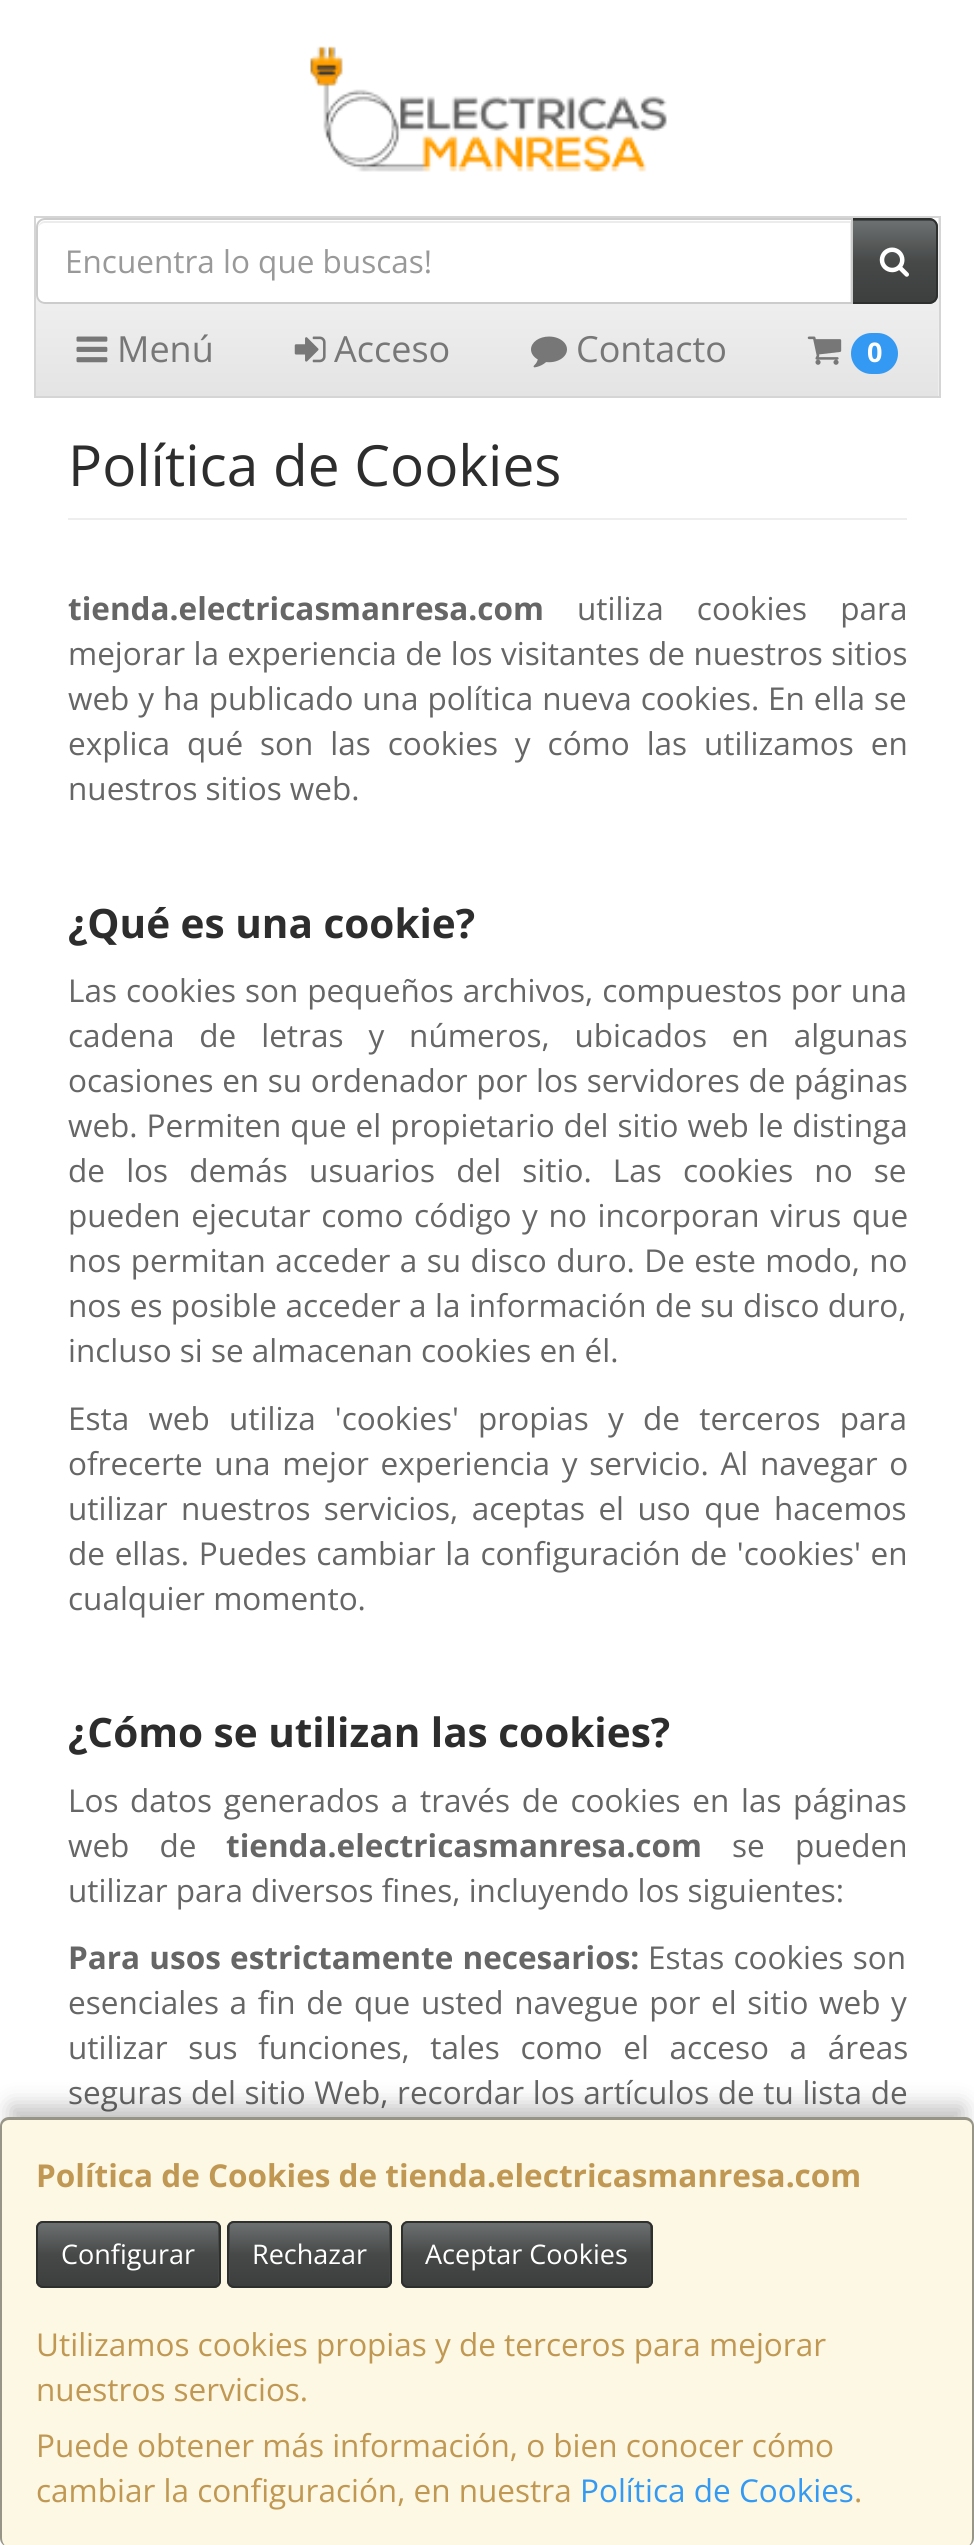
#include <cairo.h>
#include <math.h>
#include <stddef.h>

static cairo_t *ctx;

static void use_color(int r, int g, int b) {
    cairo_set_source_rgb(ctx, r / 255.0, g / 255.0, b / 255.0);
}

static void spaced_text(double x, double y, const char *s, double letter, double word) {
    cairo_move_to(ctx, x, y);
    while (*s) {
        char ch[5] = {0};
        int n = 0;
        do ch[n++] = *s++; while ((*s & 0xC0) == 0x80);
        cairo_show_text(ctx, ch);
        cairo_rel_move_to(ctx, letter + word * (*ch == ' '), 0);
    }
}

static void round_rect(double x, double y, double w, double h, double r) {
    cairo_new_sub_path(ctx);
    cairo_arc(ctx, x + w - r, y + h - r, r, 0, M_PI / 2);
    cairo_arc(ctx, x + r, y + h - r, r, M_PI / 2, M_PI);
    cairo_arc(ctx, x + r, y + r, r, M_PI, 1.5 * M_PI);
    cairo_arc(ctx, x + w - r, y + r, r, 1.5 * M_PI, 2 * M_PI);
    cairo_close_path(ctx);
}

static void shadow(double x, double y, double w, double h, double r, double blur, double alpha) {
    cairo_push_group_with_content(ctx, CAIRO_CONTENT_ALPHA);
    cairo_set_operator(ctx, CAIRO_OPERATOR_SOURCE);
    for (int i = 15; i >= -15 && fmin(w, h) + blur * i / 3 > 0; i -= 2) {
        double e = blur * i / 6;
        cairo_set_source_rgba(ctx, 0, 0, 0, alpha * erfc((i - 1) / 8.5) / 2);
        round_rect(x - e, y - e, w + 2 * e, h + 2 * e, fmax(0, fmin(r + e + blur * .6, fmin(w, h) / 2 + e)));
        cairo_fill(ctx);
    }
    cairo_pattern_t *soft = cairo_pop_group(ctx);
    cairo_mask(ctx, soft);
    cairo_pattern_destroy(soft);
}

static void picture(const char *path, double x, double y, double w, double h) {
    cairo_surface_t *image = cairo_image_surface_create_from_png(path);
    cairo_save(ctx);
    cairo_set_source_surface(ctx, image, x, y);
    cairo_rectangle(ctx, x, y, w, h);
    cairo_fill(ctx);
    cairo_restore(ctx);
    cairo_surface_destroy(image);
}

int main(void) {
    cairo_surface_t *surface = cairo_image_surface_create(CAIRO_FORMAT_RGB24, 974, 2545);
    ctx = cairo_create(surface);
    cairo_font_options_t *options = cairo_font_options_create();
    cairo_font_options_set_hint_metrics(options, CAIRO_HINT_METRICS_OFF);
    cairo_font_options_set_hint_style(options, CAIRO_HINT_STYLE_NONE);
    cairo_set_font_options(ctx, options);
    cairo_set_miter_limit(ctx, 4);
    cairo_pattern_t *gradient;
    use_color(255, 255, 255);
    cairo_paint(ctx);
    picture("img1.png", 310, 46, 357, 126);
    use_color(238, 238, 238);
    cairo_rectangle(ctx, 938, 218, 1, 178);
    cairo_fill(ctx);
    gradient = cairo_pattern_create_linear(487, 218, 487, 396);
    cairo_pattern_add_color_stop_rgba(gradient, 0, 1, 1, 1, 1);
    cairo_pattern_add_color_stop_rgba(gradient, 0.5, 0.933, 0.933, 0.933, 1);
    cairo_pattern_add_color_stop_rgba(gradient, 1, 0.894, 0.894, 0.894, 1);
    cairo_set_source(ctx, gradient);
    cairo_pattern_destroy(gradient);
    cairo_rectangle(ctx, 36, 231, 902, 165);
    cairo_fill(ctx);
    cairo_rectangle(ctx, 35, 217, 905, 180);
    use_color(213, 213, 213);
    cairo_stroke(ctx);
    use_color(71, 73, 73);
    cairo_new_path(ctx);
    cairo_move_to(ctx, 851, 218);
    cairo_line_to(ctx, 929, 218);
    cairo_curve_to(ctx, 934, 218, 938, 222, 938, 227);
    cairo_line_to(ctx, 938, 295);
    cairo_curve_to(ctx, 938, 300, 934, 304, 929, 304);
    cairo_line_to(ctx, 851, 304);
    cairo_close_path(ctx);
    cairo_fill(ctx);
    cairo_save(ctx);
    cairo_new_path(ctx);
    cairo_move_to(ctx, 851, 218);
    cairo_line_to(ctx, 929, 218);
    cairo_curve_to(ctx, 934, 218, 938, 222, 938, 227);
    cairo_line_to(ctx, 938, 295);
    cairo_curve_to(ctx, 938, 300, 934, 304, 929, 304);
    cairo_line_to(ctx, 851, 304);
    cairo_close_path(ctx);
    cairo_clip(ctx);
    gradient = cairo_pattern_create_linear(894, 221, 894, 302);
    cairo_pattern_add_color_stop_rgba(gradient, 0, 0.427, 0.439, 0.439, 1);
    cairo_pattern_add_color_stop_rgba(gradient, 0.5, 0.278, 0.286, 0.286, 1);
    cairo_pattern_add_color_stop_rgba(gradient, 1, 0.239, 0.247, 0.247, 1);
    cairo_set_source(ctx, gradient);
    cairo_pattern_destroy(gradient);
    cairo_rectangle(ctx, 853, 221, 83, 81);
    cairo_fill(ctx);
    cairo_restore(ctx);
    cairo_new_path(ctx);
    cairo_move_to(ctx, 852, 219);
    cairo_line_to(ctx, 929, 219);
    cairo_curve_to(ctx, 933.5, 219, 937, 222.5, 937, 227);
    cairo_line_to(ctx, 937, 295);
    cairo_curve_to(ctx, 937, 299.5, 933.5, 303, 929, 303);
    cairo_line_to(ctx, 852, 303);
    cairo_close_path(ctx);
    use_color(46, 47, 47);
    cairo_stroke(ctx);
    use_color(255, 255, 255);
    cairo_new_path(ctx);
    cairo_move_to(ctx, 45, 218);
    cairo_line_to(ctx, 853, 218);
    cairo_line_to(ctx, 853, 304);
    cairo_line_to(ctx, 45, 304);
    cairo_curve_to(ctx, 40, 304, 36, 300, 36, 295);
    cairo_line_to(ctx, 36, 227);
    cairo_curve_to(ctx, 36, 222, 40, 218, 45, 218);
    cairo_close_path(ctx);
    cairo_fill(ctx);
    use_color(236, 236, 236);
    cairo_new_path(ctx);
    cairo_move_to(ctx, 45, 223);
    cairo_line_to(ctx, 850, 223);
    cairo_line_to(ctx, 850, 302);
    cairo_line_to(ctx, 851, 302);
    cairo_line_to(ctx, 851, 221);
    cairo_line_to(ctx, 45, 221);
    cairo_curve_to(ctx, 40, 221, 38, 226, 38, 230);
    cairo_curve_to(ctx, 38, 226, 41, 223, 45, 223);
    cairo_close_path(ctx);
    cairo_fill(ctx);
    cairo_new_path(ctx);
    cairo_move_to(ctx, 45, 219);
    cairo_line_to(ctx, 852, 219);
    cairo_line_to(ctx, 852, 303);
    cairo_line_to(ctx, 45, 303);
    cairo_curve_to(ctx, 40.5, 303, 37, 299.5, 37, 295);
    cairo_line_to(ctx, 37, 227);
    cairo_curve_to(ctx, 37, 222.5, 40.5, 219, 45, 219);
    cairo_close_path(ctx);
    use_color(204, 204, 204);
    cairo_stroke(ctx);
    cairo_select_font_face(ctx, "Open Sans", CAIRO_FONT_SLANT_NORMAL, CAIRO_FONT_WEIGHT_NORMAL);
    cairo_set_font_size(ctx, 31.5);
    use_color(153, 153, 153);
    cairo_move_to(ctx, 65, 273);
    cairo_show_text(ctx, "Encuentra lo que buscas!");
    picture("img2.png", 879, 247, 30, 30);
    picture("img3.png", 76, 336, 32, 27);
    cairo_set_font_size(ctx, 36);
    use_color(119, 119, 119);
    cairo_move_to(ctx, 117, 362);
    cairo_show_text(ctx, "Menú");
    picture("img4.png", 294, 336, 32, 27);
    cairo_move_to(ctx, 334, 362);
    cairo_show_text(ctx, "Acceso");
    picture("img5.png", 531, 336, 36, 32);
    cairo_move_to(ctx, 576, 362);
    cairo_show_text(ctx, "Contacto");
    picture("img6.png", 807, 336, 35, 29);
    use_color(51, 153, 243);
    round_rect(851, 333, 47, 41, 20.5);
    cairo_fill(ctx);
    cairo_select_font_face(ctx, "Open Sans", CAIRO_FONT_SLANT_NORMAL, CAIRO_FONT_WEIGHT_BOLD);
    cairo_set_font_size(ctx, 27);
    use_color(255, 255, 255);
    cairo_move_to(ctx, 867, 362);
    cairo_show_text(ctx, "0");
    use_color(238, 238, 238);
    cairo_rectangle(ctx, 68, 518, 839, 2);
    cairo_fill(ctx);
    cairo_select_font_face(ctx, "Open Sans", CAIRO_FONT_SLANT_NORMAL, CAIRO_FONT_WEIGHT_NORMAL);
    cairo_set_font_size(ctx, 56.75);
    use_color(45, 45, 45);
    cairo_move_to(ctx, 68, 486);
    cairo_show_text(ctx, "Política de Cookies");
    cairo_select_font_face(ctx, "Open Sans", CAIRO_FONT_SLANT_NORMAL, CAIRO_FONT_WEIGHT_BOLD);
    cairo_set_font_size(ctx, 31.5);
    use_color(102, 102, 102);
    cairo_move_to(ctx, 68, 620);
    cairo_show_text(ctx, "tienda.electricasmanresa.com");
    cairo_select_font_face(ctx, "Open Sans", CAIRO_FONT_SLANT_NORMAL, CAIRO_FONT_WEIGHT_NORMAL);
    spaced_text(577, 620, "utiliza cookies para", 0, 25);
    spaced_text(68, 665, "mejorar la experiencia de los visitantes de nuestros sitios", 0, 0.25);
    spaced_text(68, 710, "web y ha publicado una política nueva cookies. En ella se", 0, 0.75);
    spaced_text(68, 755, "explica qué son las cookies y cómo las utilizamos en", 0, 8.75);
    cairo_move_to(ctx, 68, 800);
    cairo_show_text(ctx, "nuestros sitios web.");
    cairo_select_font_face(ctx, "Open Sans", CAIRO_FONT_SLANT_NORMAL, CAIRO_FONT_WEIGHT_BOLD);
    cairo_set_font_size(ctx, 40.5);
    use_color(45, 45, 45);
    cairo_move_to(ctx, 68, 938);
    cairo_show_text(ctx, "¿Qué es una cookie?");
    cairo_select_font_face(ctx, "Open Sans", CAIRO_FONT_SLANT_NORMAL, CAIRO_FONT_WEIGHT_NORMAL);
    cairo_set_font_size(ctx, 31.5);
    use_color(102, 102, 102);
    spaced_text(68, 1002, "Las cookies son pequeños archivos, compuestos por una", 0, 0.75);
    spaced_text(68, 1047, "cadena de letras y números, ubicados en algunas", 0, 16.75);
    spaced_text(68, 1092, "ocasiones en su ordenador por los servidores de páginas", 0, 0.5);
    spaced_text(68, 1137, "web. Permiten que el propietario del sitio web le distinga", 0, 0.75);
    spaced_text(68, 1182, "de los demás usuarios del sitio. Las cookies no se", 0, 13);
    spaced_text(68, 1227, "pueden ejecutar como código y no incorporan virus que", 0, 2.5);
    spaced_text(68, 1272, "nos permitan acceder a su disco duro. De este modo, no", 0, 1.25);
    spaced_text(68, 1317, "nos es posible acceder a la información de su disco duro,", 0, 0.25);
    cairo_move_to(ctx, 68, 1362);
    cairo_show_text(ctx, "incluso si se almacenan cookies en él.");
    spaced_text(68, 1430, "Esta web utiliza 'cookies' propias y de terceros para", 0, 11);
    spaced_text(68, 1475, "ofrecerte una mejor experiencia y servicio. Al navegar o", 0, 3.5);
    spaced_text(68, 1520, "utilizar nuestros servicios, aceptas el uso que hacemos", 0, 5.25);
    spaced_text(68, 1565, "de ellas. Puedes cambiar la configuración de 'cookies' en", 0, 1.5);
    cairo_move_to(ctx, 68, 1610);
    cairo_show_text(ctx, "cualquier momento.");
    cairo_select_font_face(ctx, "Open Sans", CAIRO_FONT_SLANT_NORMAL, CAIRO_FONT_WEIGHT_BOLD);
    cairo_set_font_size(ctx, 40.5);
    use_color(45, 45, 45);
    cairo_move_to(ctx, 68, 1747);
    cairo_show_text(ctx, "¿Cómo se utilizan las cookies?");
    cairo_select_font_face(ctx, "Open Sans", CAIRO_FONT_SLANT_NORMAL, CAIRO_FONT_WEIGHT_NORMAL);
    cairo_set_font_size(ctx, 31.5);
    use_color(102, 102, 102);
    spaced_text(68, 1812, "Los datos generados a través de cookies en las páginas", 0, 3.5);
    spaced_text(68, 1857, "web de", 0, 22);
    cairo_select_font_face(ctx, "Open Sans", CAIRO_FONT_SLANT_NORMAL, CAIRO_FONT_WEIGHT_BOLD);
    cairo_move_to(ctx, 226, 1857);
    cairo_show_text(ctx, "tienda.electricasmanresa.com");
    cairo_select_font_face(ctx, "Open Sans", CAIRO_FONT_SLANT_NORMAL, CAIRO_FONT_WEIGHT_NORMAL);
    spaced_text(732, 1857, "se pueden", 0, 22);
    cairo_move_to(ctx, 68, 1902);
    cairo_show_text(ctx, "utilizar para diversos fines, incluyendo los siguientes:");
    cairo_select_font_face(ctx, "Open Sans", CAIRO_FONT_SLANT_NORMAL, CAIRO_FONT_WEIGHT_BOLD);
    spaced_text(68, 1969, "Para usos estrictamente necesarios:", 0, 1);
    cairo_select_font_face(ctx, "Open Sans", CAIRO_FONT_SLANT_NORMAL, CAIRO_FONT_WEIGHT_NORMAL);
    spaced_text(648, 1969, "Estas cookies son", 0, 1);
    spaced_text(68, 2014, "esenciales a fin de que usted navegue por el sitio web y", 0, 2.5);
    spaced_text(68, 2059, "utilizar sus funciones, tales como el acceso a áreas", 0, 12.5);
    spaced_text(68, 2104, "seguras del sitio Web, recordar los artículos de tu lista de", 0, 0.4);
    use_color(0, 0, 0);
    shadow(11, 2106, 952, 407, 0, 11, 0.25);
    use_color(252, 248, 227);
    round_rect(0, 2117, 974, 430, 9);
    cairo_fill(ctx);
    cairo_set_source_rgba(ctx, 0, 0, 0, 0.4);
    cairo_set_fill_rule(ctx, CAIRO_FILL_RULE_EVEN_ODD);
    cairo_new_path(ctx);
    cairo_move_to(ctx, 9, 2117);
    cairo_line_to(ctx, 965, 2117);
    cairo_curve_to(ctx, 970, 2117, 974, 2121, 974, 2126);
    cairo_line_to(ctx, 974, 2538);
    cairo_curve_to(ctx, 974, 2543, 970, 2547, 965, 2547);
    cairo_line_to(ctx, 9, 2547);
    cairo_curve_to(ctx, 4, 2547, 0, 2543, 0, 2538);
    cairo_line_to(ctx, 0, 2126);
    cairo_curve_to(ctx, 0, 2121, 4, 2117, 9, 2117);
    cairo_close_path(ctx);
    cairo_move_to(ctx, 9, 2120);
    cairo_line_to(ctx, 965, 2120);
    cairo_curve_to(ctx, 969, 2120, 972, 2123, 972, 2126);
    cairo_line_to(ctx, 972, 2538);
    cairo_curve_to(ctx, 972, 2543, 969, 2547, 965, 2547);
    cairo_line_to(ctx, 9, 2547);
    cairo_curve_to(ctx, 5, 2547, 2, 2543, 2, 2538);
    cairo_line_to(ctx, 2, 2126);
    cairo_curve_to(ctx, 2, 2123, 5, 2120, 9, 2120);
    cairo_close_path(ctx);
    cairo_fill(ctx);
    cairo_select_font_face(ctx, "Open Sans", CAIRO_FONT_SLANT_NORMAL, CAIRO_FONT_WEIGHT_BOLD);
    use_color(192, 152, 83);
    cairo_move_to(ctx, 36, 2187);
    cairo_show_text(ctx, "Política de Cookies de tienda.electricasmanresa.com");
    use_color(71, 73, 73);
    round_rect(36, 2221, 185, 67, 7);
    cairo_fill(ctx);
    gradient = cairo_pattern_create_linear(128, 2223, 128, 2286);
    cairo_pattern_add_color_stop_rgba(gradient, 0, 0.427, 0.439, 0.439, 1);
    cairo_pattern_add_color_stop_rgba(gradient, 0.5, 0.278, 0.286, 0.286, 1);
    cairo_pattern_add_color_stop_rgba(gradient, 1, 0.239, 0.247, 0.247, 1);
    cairo_set_source(ctx, gradient);
    cairo_pattern_destroy(gradient);
    cairo_rectangle(ctx, 38, 2223, 180, 63);
    cairo_fill(ctx);
    round_rect(37, 2222, 183, 65, 6);
    use_color(46, 47, 47);
    cairo_stroke(ctx);
    cairo_select_font_face(ctx, "Open Sans", CAIRO_FONT_SLANT_NORMAL, CAIRO_FONT_WEIGHT_NORMAL);
    cairo_set_font_size(ctx, 27);
    use_color(255, 255, 255);
    cairo_move_to(ctx, 61, 2264);
    cairo_show_text(ctx, "Configurar");
    use_color(71, 73, 73);
    round_rect(227, 2221, 165, 67, 7);
    cairo_fill(ctx);
    gradient = cairo_pattern_create_linear(309, 2223, 309, 2286);
    cairo_pattern_add_color_stop_rgba(gradient, 0, 0.427, 0.439, 0.439, 1);
    cairo_pattern_add_color_stop_rgba(gradient, 0.5, 0.278, 0.286, 0.286, 1);
    cairo_pattern_add_color_stop_rgba(gradient, 1, 0.239, 0.247, 0.247, 1);
    cairo_set_source(ctx, gradient);
    cairo_pattern_destroy(gradient);
    cairo_rectangle(ctx, 230, 2223, 159, 63);
    cairo_fill(ctx);
    round_rect(228, 2222, 163, 65, 6);
    use_color(46, 47, 47);
    cairo_stroke(ctx);
    use_color(255, 255, 255);
    cairo_move_to(ctx, 252, 2264);
    cairo_show_text(ctx, "Rechazar");
    use_color(71, 73, 73);
    round_rect(401, 2221, 252, 67, 7);
    cairo_fill(ctx);
    gradient = cairo_pattern_create_linear(527, 2223, 527, 2286);
    cairo_pattern_add_color_stop_rgba(gradient, 0, 0.427, 0.439, 0.439, 1);
    cairo_pattern_add_color_stop_rgba(gradient, 0.5, 0.278, 0.286, 0.286, 1);
    cairo_pattern_add_color_stop_rgba(gradient, 1, 0.239, 0.247, 0.247, 1);
    cairo_set_source(ctx, gradient);
    cairo_pattern_destroy(gradient);
    cairo_rectangle(ctx, 403, 2223, 247, 63);
    cairo_fill(ctx);
    round_rect(402, 2222, 250, 65, 6);
    use_color(46, 47, 47);
    cairo_stroke(ctx);
    use_color(255, 255, 255);
    cairo_move_to(ctx, 425, 2264);
    cairo_show_text(ctx, "Aceptar Cookies");
    cairo_set_font_size(ctx, 31.5);
    use_color(192, 152, 83);
    cairo_move_to(ctx, 36, 2356);
    cairo_show_text(ctx, "Utilizamos cookies propias y de terceros para mejorar");
    cairo_move_to(ctx, 36, 2401);
    cairo_show_text(ctx, "nuestros servicios.");
    cairo_move_to(ctx, 36, 2457);
    cairo_show_text(ctx, "Puede obtener más información, o bien conocer cómo");
    cairo_move_to(ctx, 36, 2502);
    cairo_show_text(ctx, "cambiar la configuración, en nuestra");
    use_color(51, 153, 243);
    cairo_move_to(ctx, 580, 2502);
    cairo_show_text(ctx, "Política de Cookies");
    use_color(192, 152, 83);
    cairo_move_to(ctx, 854, 2502);
    cairo_show_text(ctx, ".");
    cairo_surface_write_to_png(surface, "result.png");
    cairo_font_options_destroy(options);
    cairo_destroy(ctx);
    cairo_surface_destroy(surface);
    return 0;
}
